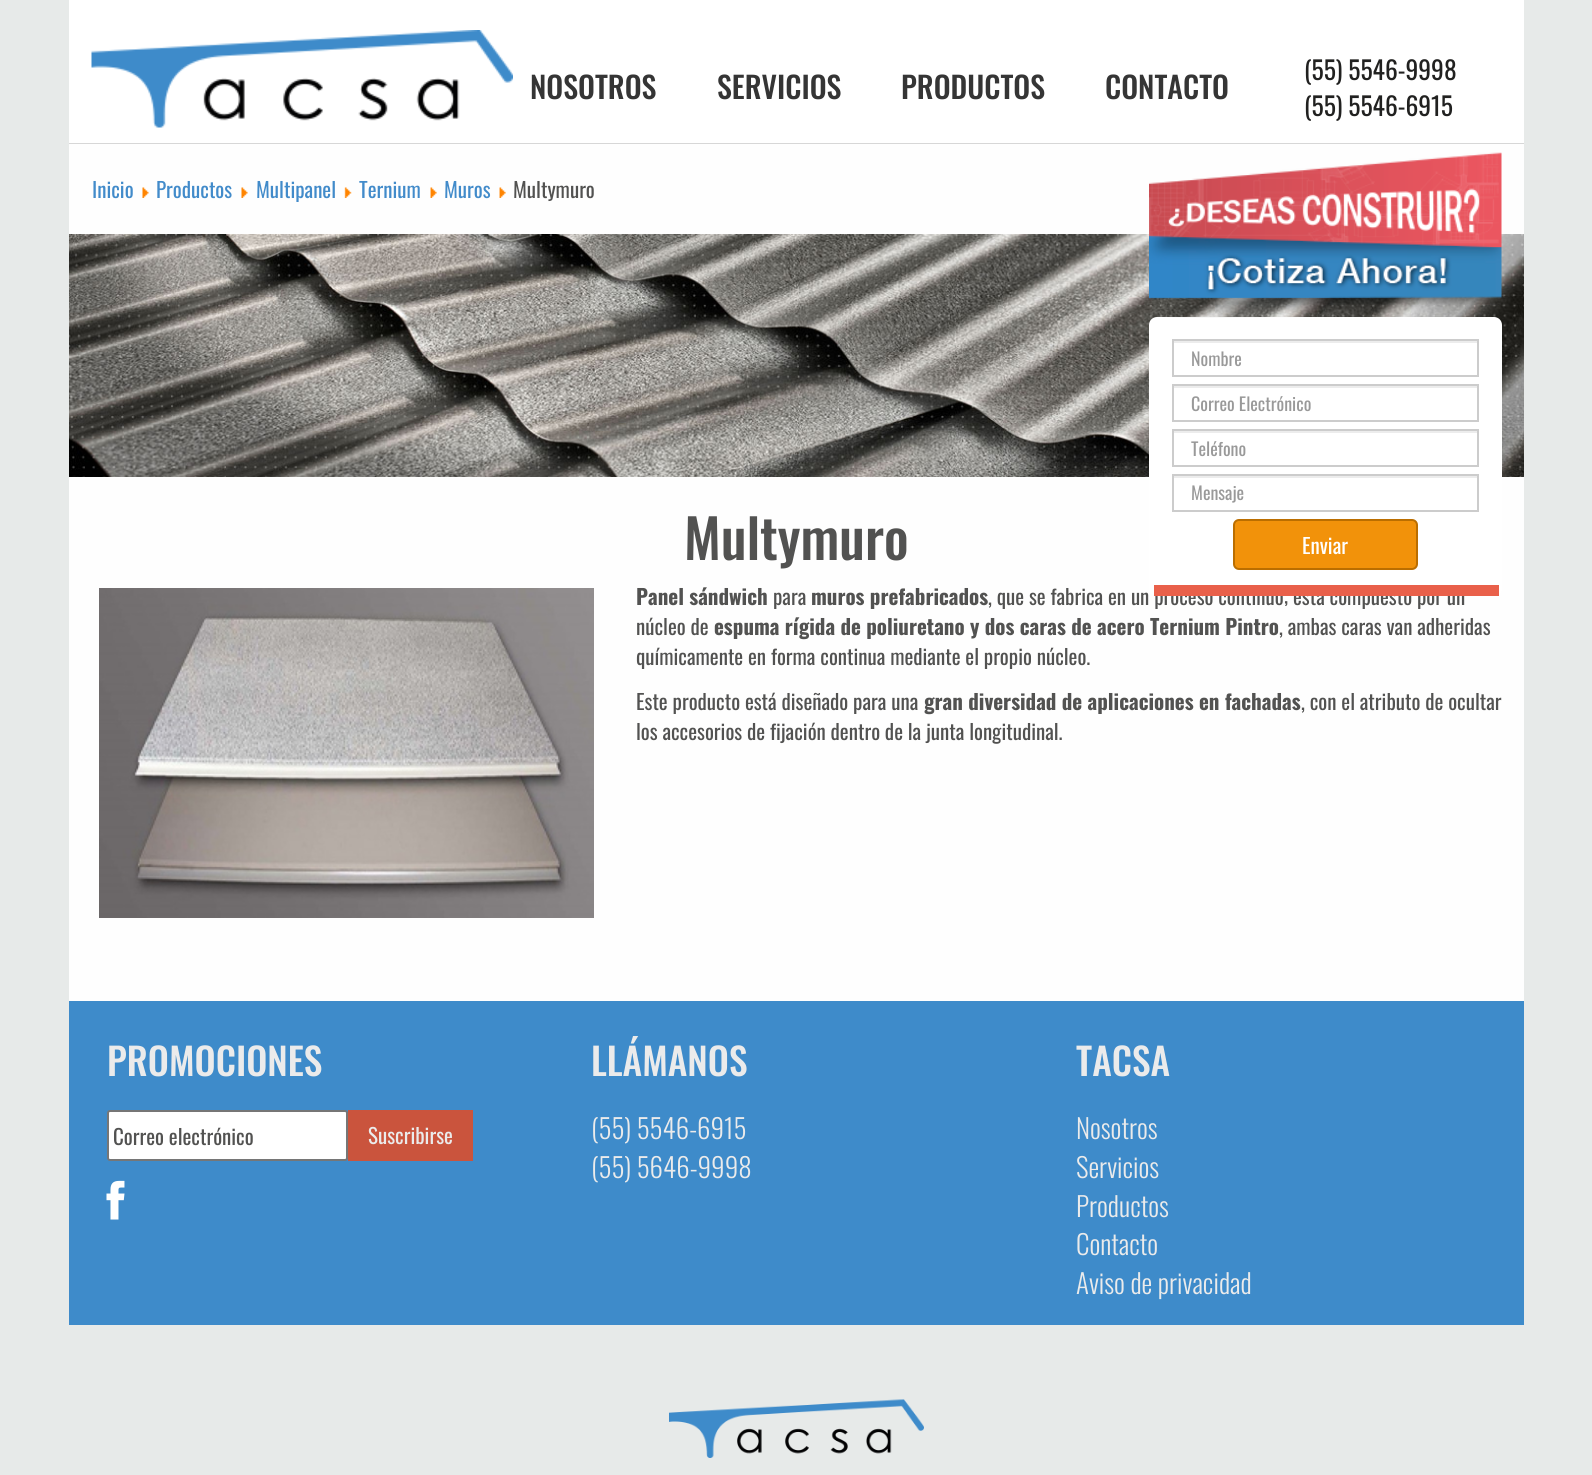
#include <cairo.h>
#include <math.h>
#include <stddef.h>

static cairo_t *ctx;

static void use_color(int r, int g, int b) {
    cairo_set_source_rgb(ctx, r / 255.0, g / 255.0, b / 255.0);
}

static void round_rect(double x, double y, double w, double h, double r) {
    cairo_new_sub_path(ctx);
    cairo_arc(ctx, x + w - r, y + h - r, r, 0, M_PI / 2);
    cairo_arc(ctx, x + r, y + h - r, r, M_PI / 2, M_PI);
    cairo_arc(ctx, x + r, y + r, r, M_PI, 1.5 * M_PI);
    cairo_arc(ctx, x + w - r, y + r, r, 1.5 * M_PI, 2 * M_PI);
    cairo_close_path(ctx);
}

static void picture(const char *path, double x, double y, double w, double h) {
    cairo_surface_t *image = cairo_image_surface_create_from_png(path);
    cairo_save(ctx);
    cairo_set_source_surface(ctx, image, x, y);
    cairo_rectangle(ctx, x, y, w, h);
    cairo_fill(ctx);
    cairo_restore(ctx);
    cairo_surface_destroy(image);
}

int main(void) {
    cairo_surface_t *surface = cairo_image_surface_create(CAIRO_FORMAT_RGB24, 1592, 1475);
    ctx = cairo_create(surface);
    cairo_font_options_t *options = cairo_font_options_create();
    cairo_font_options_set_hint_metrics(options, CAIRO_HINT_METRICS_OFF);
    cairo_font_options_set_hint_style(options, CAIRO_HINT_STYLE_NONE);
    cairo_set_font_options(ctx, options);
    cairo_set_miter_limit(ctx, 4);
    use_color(231, 234, 233);
    cairo_paint(ctx);
    use_color(255, 255, 255);
    cairo_rectangle(ctx, 69, 0, 1455, 143);
    cairo_fill(ctx);
    use_color(215, 215, 215);
    cairo_rectangle(ctx, 69, 143, 1455, 1);
    cairo_fill(ctx);
    picture("img1.png", 91, 30, 422, 98);
    cairo_select_font_face(ctx, "Oswald Medium", CAIRO_FONT_SLANT_NORMAL, CAIRO_FONT_WEIGHT_NORMAL);
    cairo_set_font_size(ctx, 30);
    use_color(53, 53, 53);
    cairo_move_to(ctx, 530, 99);
    cairo_show_text(ctx, "NOSOTROS");
    cairo_move_to(ctx, 717, 99);
    cairo_show_text(ctx, "SERVICIOS");
    cairo_move_to(ctx, 901, 99);
    cairo_show_text(ctx, "PRODUCTOS");
    cairo_move_to(ctx, 1105, 99);
    cairo_show_text(ctx, "CONTACTO");
    cairo_select_font_face(ctx, "Oswald", CAIRO_FONT_SLANT_NORMAL, CAIRO_FONT_WEIGHT_NORMAL);
    cairo_set_font_size(ctx, 25.5);
    use_color(33, 33, 32);
    cairo_move_to(ctx, 1304, 80);
    cairo_show_text(ctx, "(55) 5546-9998");
    cairo_move_to(ctx, 1304, 116);
    cairo_show_text(ctx, "(55) 5546-6915");
    use_color(254, 254, 254);
    cairo_rectangle(ctx, 69, 144, 1455, 857);
    cairo_fill(ctx);
    cairo_set_font_size(ctx, 21);
    use_color(66, 139, 202);
    cairo_move_to(ctx, 92, 198);
    cairo_show_text(ctx, "Inicio");
    picture("img2.png", 142, 187, 7, 11);
    cairo_move_to(ctx, 156, 198);
    cairo_show_text(ctx, "Productos");
    picture("img2.png", 241, 187, 7, 11);
    cairo_move_to(ctx, 256, 198);
    cairo_show_text(ctx, "Multipanel");
    picture("img3.png", 344, 187, 8, 11);
    cairo_move_to(ctx, 359, 198);
    cairo_show_text(ctx, "Ternium");
    picture("img4.png", 430, 187, 7, 11);
    cairo_move_to(ctx, 444, 198);
    cairo_show_text(ctx, "Muros");
    picture("img4.png", 499, 187, 7, 11);
    use_color(82, 82, 81);
    cairo_move_to(ctx, 513, 198);
    cairo_show_text(ctx, "Multymuro");
    picture("img5.png", 69, 234, 1455, 243);
    cairo_select_font_face(ctx, "Oswald Medium", CAIRO_FONT_SLANT_NORMAL, CAIRO_FONT_WEIGHT_NORMAL);
    cairo_set_font_size(ctx, 54);
    cairo_move_to(ctx, 684, 560);
    cairo_show_text(ctx, "Multymuro");
    cairo_select_font_face(ctx, "Oswald", CAIRO_FONT_SLANT_NORMAL, CAIRO_FONT_WEIGHT_NORMAL);
    cairo_set_font_size(ctx, 21);
    cairo_move_to(ctx, 988, 605);
    cairo_show_text(ctx, ", que se fabrica en un proceso continuo; esta compuesto por un");
    use_color(255, 255, 255);
    round_rect(1149, 317, 353, 279, 8);
    cairo_fill(ctx);
    picture("img6.png", 1149, 152, 353, 166);
    use_color(233, 96, 74);
    cairo_rectangle(ctx, 1154, 585, 345, 11);
    cairo_fill(ctx);
    use_color(236, 236, 236);
    cairo_rectangle(ctx, 1173, 341, 305, 2);
    cairo_fill(ctx);
    cairo_rectangle(ctx, 1173, 340, 305, 36);
    use_color(204, 204, 204);
    cairo_stroke(ctx);
    cairo_set_font_size(ctx, 18);
    use_color(153, 153, 153);
    cairo_move_to(ctx, 1191, 366);
    cairo_show_text(ctx, "Nombre");
    use_color(236, 236, 236);
    cairo_rectangle(ctx, 1173, 386, 305, 2);
    cairo_fill(ctx);
    cairo_rectangle(ctx, 1173, 385, 305, 36);
    use_color(204, 204, 204);
    cairo_stroke(ctx);
    use_color(153, 153, 153);
    cairo_move_to(ctx, 1191, 411);
    cairo_show_text(ctx, "Correo Electrónico");
    use_color(236, 236, 236);
    cairo_rectangle(ctx, 1173, 431, 305, 2);
    cairo_fill(ctx);
    cairo_rectangle(ctx, 1173, 430, 305, 36);
    use_color(204, 204, 204);
    cairo_stroke(ctx);
    use_color(153, 153, 153);
    cairo_move_to(ctx, 1191, 456);
    cairo_show_text(ctx, "Teléfono");
    use_color(236, 236, 236);
    cairo_rectangle(ctx, 1173, 476, 305, 2);
    cairo_fill(ctx);
    cairo_rectangle(ctx, 1173, 475, 305, 36);
    use_color(204, 204, 204);
    cairo_stroke(ctx);
    use_color(153, 153, 153);
    cairo_move_to(ctx, 1191, 500);
    cairo_show_text(ctx, "Mensaje");
    use_color(242, 146, 10);
    round_rect(1234, 520, 183, 49, 5);
    cairo_fill_preserve(ctx);
    use_color(187, 110, 0);
    cairo_stroke(ctx);
    cairo_set_font_size(ctx, 21);
    use_color(255, 255, 255);
    cairo_move_to(ctx, 1302, 554);
    cairo_show_text(ctx, "Enviar");
    picture("img7.png", 99, 588, 495, 330);
    cairo_select_font_face(ctx, "Oswald", CAIRO_FONT_SLANT_NORMAL, CAIRO_FONT_WEIGHT_BOLD);
    use_color(82, 82, 81);
    cairo_move_to(ctx, 636, 605);
    cairo_show_text(ctx, "Panel sándwich");
    cairo_select_font_face(ctx, "Oswald", CAIRO_FONT_SLANT_NORMAL, CAIRO_FONT_WEIGHT_NORMAL);
    cairo_move_to(ctx, 773, 605);
    cairo_show_text(ctx, "para");
    cairo_select_font_face(ctx, "Oswald", CAIRO_FONT_SLANT_NORMAL, CAIRO_FONT_WEIGHT_BOLD);
    cairo_move_to(ctx, 811, 605);
    cairo_show_text(ctx, "muros prefabricados");
    cairo_select_font_face(ctx, "Oswald", CAIRO_FONT_SLANT_NORMAL, CAIRO_FONT_WEIGHT_NORMAL);
    cairo_move_to(ctx, 636, 635);
    cairo_show_text(ctx, "núcleo de");
    cairo_select_font_face(ctx, "Oswald", CAIRO_FONT_SLANT_NORMAL, CAIRO_FONT_WEIGHT_BOLD);
    cairo_move_to(ctx, 714, 635);
    cairo_show_text(ctx, "espuma rígida de poliuretano y dos caras de acero Ternium Pintro");
    cairo_select_font_face(ctx, "Oswald", CAIRO_FONT_SLANT_NORMAL, CAIRO_FONT_WEIGHT_NORMAL);
    cairo_move_to(ctx, 1279, 635);
    cairo_show_text(ctx, ", ambas caras van adheridas");
    cairo_move_to(ctx, 636, 665);
    cairo_show_text(ctx, "químicamente en forma continua mediante el propio núcleo.");
    cairo_move_to(ctx, 636, 710);
    cairo_show_text(ctx, "Este producto está diseñado para una");
    cairo_select_font_face(ctx, "Oswald", CAIRO_FONT_SLANT_NORMAL, CAIRO_FONT_WEIGHT_BOLD);
    cairo_move_to(ctx, 924, 710);
    cairo_show_text(ctx, "gran diversidad de aplicaciones en fachadas");
    cairo_select_font_face(ctx, "Oswald", CAIRO_FONT_SLANT_NORMAL, CAIRO_FONT_WEIGHT_NORMAL);
    cairo_move_to(ctx, 1301, 710);
    cairo_show_text(ctx, ", con el atributo de ocultar");
    cairo_move_to(ctx, 636, 740);
    cairo_show_text(ctx, "los accesorios de fijación dentro de la junta longitudinal.");
    use_color(62, 139, 202);
    cairo_rectangle(ctx, 69, 1001, 1455, 324);
    cairo_fill(ctx);
    cairo_select_font_face(ctx, "Oswald Medium", CAIRO_FONT_SLANT_NORMAL, CAIRO_FONT_WEIGHT_NORMAL);
    cairo_set_font_size(ctx, 37.5);
    use_color(235, 235, 235);
    cairo_move_to(ctx, 107, 1076);
    cairo_show_text(ctx, "PROMOCIONES");
    use_color(255, 255, 255);
    round_rect(108, 1111, 239, 49, 2);
    cairo_fill_preserve(ctx);
    use_color(118, 118, 118);
    cairo_stroke(ctx);
    cairo_select_font_face(ctx, "Oswald", CAIRO_FONT_SLANT_NORMAL, CAIRO_FONT_WEIGHT_NORMAL);
    cairo_set_font_size(ctx, 21);
    use_color(82, 82, 81);
    cairo_move_to(ctx, 113, 1145);
    cairo_show_text(ctx, "Correo electrónico");
    use_color(202, 84, 61);
    cairo_rectangle(ctx, 348, 1110, 125, 51);
    cairo_fill(ctx);
    use_color(235, 235, 235);
    cairo_move_to(ctx, 368, 1144);
    cairo_show_text(ctx, "Suscribirse");
    picture("img8.png", 106, 1180, 19, 40);
    cairo_select_font_face(ctx, "Oswald Medium", CAIRO_FONT_SLANT_NORMAL, CAIRO_FONT_WEIGHT_NORMAL);
    cairo_set_font_size(ctx, 37.5);
    cairo_move_to(ctx, 591, 1076);
    cairo_show_text(ctx, "LLÁMANOS");
    cairo_select_font_face(ctx, "Oswald Light", CAIRO_FONT_SLANT_NORMAL, CAIRO_FONT_WEIGHT_NORMAL);
    cairo_set_font_size(ctx, 27);
    cairo_move_to(ctx, 591, 1139);
    cairo_show_text(ctx, "(55) 5546-6915");
    cairo_move_to(ctx, 591, 1178);
    cairo_show_text(ctx, "(55) 5646-9998");
    cairo_select_font_face(ctx, "Oswald Medium", CAIRO_FONT_SLANT_NORMAL, CAIRO_FONT_WEIGHT_NORMAL);
    cairo_set_font_size(ctx, 37.5);
    cairo_move_to(ctx, 1076, 1076);
    cairo_show_text(ctx, "TACSA");
    cairo_select_font_face(ctx, "Oswald Light", CAIRO_FONT_SLANT_NORMAL, CAIRO_FONT_WEIGHT_NORMAL);
    cairo_set_font_size(ctx, 27);
    cairo_move_to(ctx, 1076, 1139);
    cairo_show_text(ctx, "Nosotros");
    cairo_move_to(ctx, 1076, 1178);
    cairo_show_text(ctx, "Servicios");
    cairo_move_to(ctx, 1076, 1217);
    cairo_show_text(ctx, "Productos");
    cairo_move_to(ctx, 1076, 1255);
    cairo_show_text(ctx, "Contacto");
    cairo_move_to(ctx, 1076, 1294);
    cairo_show_text(ctx, "Aviso de privacidad");
    picture("img9.png", 669, 1399, 255, 59);
    cairo_surface_write_to_png(surface, "result.png");
    cairo_font_options_destroy(options);
    cairo_destroy(ctx);
    cairo_surface_destroy(surface);
    return 0;
}
